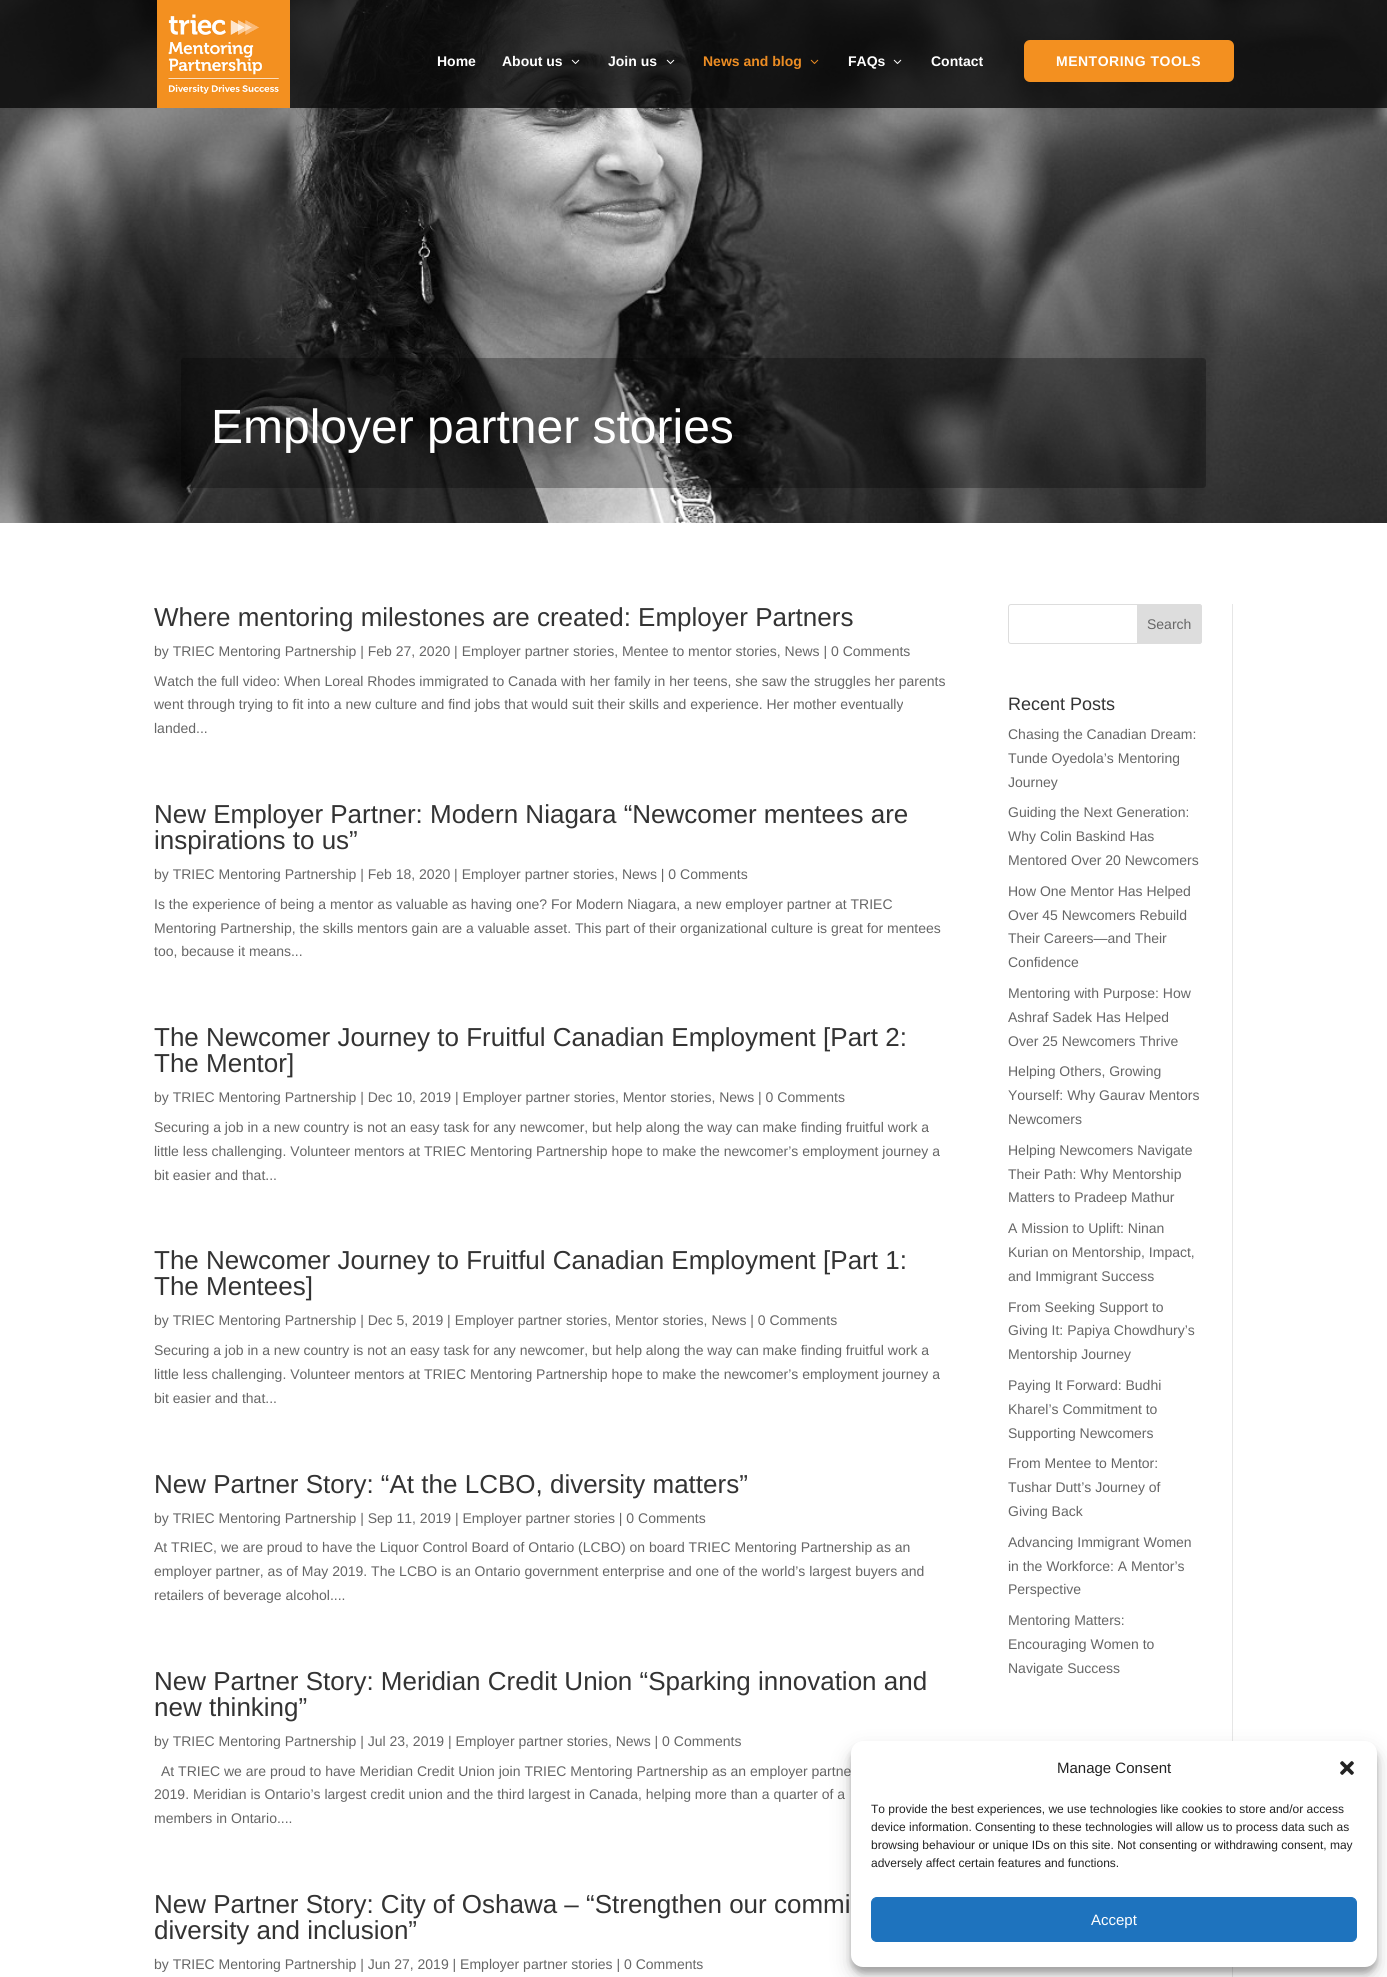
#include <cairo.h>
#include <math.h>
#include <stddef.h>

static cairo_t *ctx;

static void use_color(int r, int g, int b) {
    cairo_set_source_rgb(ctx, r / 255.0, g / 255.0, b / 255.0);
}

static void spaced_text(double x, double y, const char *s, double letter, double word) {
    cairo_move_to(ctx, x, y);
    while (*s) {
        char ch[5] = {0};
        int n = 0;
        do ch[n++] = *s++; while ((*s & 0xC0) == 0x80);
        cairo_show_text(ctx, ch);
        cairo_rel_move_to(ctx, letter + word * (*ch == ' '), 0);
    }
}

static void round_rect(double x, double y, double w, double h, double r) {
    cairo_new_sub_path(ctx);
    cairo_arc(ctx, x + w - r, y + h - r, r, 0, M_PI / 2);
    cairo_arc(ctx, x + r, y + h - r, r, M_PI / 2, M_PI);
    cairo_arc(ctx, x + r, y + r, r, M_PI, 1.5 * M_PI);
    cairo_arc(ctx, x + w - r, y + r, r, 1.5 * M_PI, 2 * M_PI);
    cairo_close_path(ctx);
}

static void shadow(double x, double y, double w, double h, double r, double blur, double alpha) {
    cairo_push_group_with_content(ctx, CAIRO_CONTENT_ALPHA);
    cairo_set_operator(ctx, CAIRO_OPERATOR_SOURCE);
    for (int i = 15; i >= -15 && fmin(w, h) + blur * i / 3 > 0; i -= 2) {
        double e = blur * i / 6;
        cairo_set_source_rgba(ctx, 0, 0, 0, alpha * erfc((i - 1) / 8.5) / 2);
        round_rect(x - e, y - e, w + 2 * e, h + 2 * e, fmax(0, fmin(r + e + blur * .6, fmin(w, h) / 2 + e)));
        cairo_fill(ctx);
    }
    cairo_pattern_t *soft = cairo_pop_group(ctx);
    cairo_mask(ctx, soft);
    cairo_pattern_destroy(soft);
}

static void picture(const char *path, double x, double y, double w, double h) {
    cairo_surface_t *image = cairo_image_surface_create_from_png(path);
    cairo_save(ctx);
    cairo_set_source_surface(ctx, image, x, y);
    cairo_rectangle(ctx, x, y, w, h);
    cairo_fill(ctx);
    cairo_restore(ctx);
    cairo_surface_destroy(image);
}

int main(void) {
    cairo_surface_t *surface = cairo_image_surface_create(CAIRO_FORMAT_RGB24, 1387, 1977);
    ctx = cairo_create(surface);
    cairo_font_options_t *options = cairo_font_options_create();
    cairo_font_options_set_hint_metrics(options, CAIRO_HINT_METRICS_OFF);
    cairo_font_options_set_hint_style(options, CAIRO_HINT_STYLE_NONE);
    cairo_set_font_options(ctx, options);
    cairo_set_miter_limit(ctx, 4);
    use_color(255, 255, 255);
    cairo_paint(ctx);
    picture("img6.png", 0, 0, 1387, 523);
    cairo_set_source_rgba(ctx, 0.039, 0.039, 0.039, 0.81);
    cairo_rectangle(ctx, 0, 0, 1387, 108);
    cairo_fill(ctx);
    picture("img1.png", 157, 0, 133, 108);
    cairo_select_font_face(ctx, "Liberation Sans", CAIRO_FONT_SLANT_NORMAL, CAIRO_FONT_WEIGHT_BOLD);
    cairo_set_font_size(ctx, 14);
    use_color(255, 255, 255);
    cairo_move_to(ctx, 437, 66);
    cairo_show_text(ctx, "Home");
    cairo_move_to(ctx, 502, 66);
    cairo_show_text(ctx, "About us");
    picture("img2.png", 571, 59, 9, 5);
    cairo_move_to(ctx, 608, 66);
    cairo_show_text(ctx, "Join us");
    picture("img3.png", 666, 59, 9, 5);
    use_color(237, 141, 35);
    cairo_move_to(ctx, 703, 66);
    cairo_show_text(ctx, "News and blog");
    picture("img4.png", 810, 59, 9, 5);
    use_color(255, 255, 255);
    cairo_move_to(ctx, 848, 66);
    cairo_show_text(ctx, "FAQs");
    picture("img5.png", 893, 59, 9, 5);
    cairo_move_to(ctx, 931, 66);
    cairo_show_text(ctx, "Contact");
    use_color(243, 144, 32);
    round_rect(1024, 40, 210, 42, 6);
    cairo_fill(ctx);
    use_color(255, 255, 255);
    spaced_text(1056, 66, "MENTORING TOOLS", 0.5, 0);
    cairo_set_source_rgba(ctx, 0, 0, 0, 0.3);
    round_rect(181, 358, 1025, 130, 3);
    cairo_fill(ctx);
    cairo_select_font_face(ctx, "Liberation Sans", CAIRO_FONT_SLANT_NORMAL, CAIRO_FONT_WEIGHT_NORMAL);
    cairo_set_font_size(ctx, 48);
    use_color(255, 255, 255);
    cairo_move_to(ctx, 211, 443);
    cairo_show_text(ctx, "Employer partner stories");
    cairo_set_font_size(ctx, 26);
    use_color(51, 51, 51);
    cairo_move_to(ctx, 154, 626);
    cairo_show_text(ctx, "Where mentoring milestones are created: Employer Partners");
    cairo_set_font_size(ctx, 14);
    use_color(102, 102, 102);
    cairo_move_to(ctx, 154, 656);
    cairo_show_text(ctx, "by TRIEC Mentoring Partnership | Feb 27, 2020 | Employer partner stories, Mentee to mentor stories, News | 0 Comments");
    cairo_move_to(ctx, 154, 686);
    cairo_show_text(ctx, "Watch the full video: When Loreal Rhodes immigrated to Canada with her family in her teens, she saw the struggles her parents");
    cairo_move_to(ctx, 154, 709);
    cairo_show_text(ctx, "went through trying to fit into a new culture and find jobs that would suit their skills and experience. Her mother eventually");
    cairo_move_to(ctx, 154, 733);
    cairo_show_text(ctx, "landed...");
    cairo_set_font_size(ctx, 26);
    use_color(51, 51, 51);
    cairo_move_to(ctx, 154, 823);
    cairo_show_text(ctx, "New Employer Partner: Modern Niagara “Newcomer mentees are");
    cairo_move_to(ctx, 154, 849);
    cairo_show_text(ctx, "inspirations to us”");
    cairo_set_font_size(ctx, 14);
    use_color(102, 102, 102);
    cairo_move_to(ctx, 154, 879);
    cairo_show_text(ctx, "by TRIEC Mentoring Partnership | Feb 18, 2020 | Employer partner stories, News | 0 Comments");
    cairo_move_to(ctx, 154, 909);
    cairo_show_text(ctx, "Is the experience of being a mentor as valuable as having one? For Modern Niagara, a new employer partner at TRIEC");
    cairo_move_to(ctx, 154, 933);
    cairo_show_text(ctx, "Mentoring Partnership, the skills mentors gain are a valuable asset. This part of their organizational culture is great for mentees");
    cairo_move_to(ctx, 154, 956);
    cairo_show_text(ctx, "too, because it means...");
    cairo_set_font_size(ctx, 26);
    use_color(51, 51, 51);
    cairo_move_to(ctx, 154, 1046);
    cairo_show_text(ctx, "The Newcomer Journey to Fruitful Canadian Employment [Part 2:");
    cairo_move_to(ctx, 154, 1072);
    cairo_show_text(ctx, "The Mentor]");
    cairo_set_font_size(ctx, 14);
    use_color(102, 102, 102);
    cairo_move_to(ctx, 154, 1102);
    cairo_show_text(ctx, "by TRIEC Mentoring Partnership | Dec 10, 2019 | Employer partner stories, Mentor stories, News | 0 Comments");
    cairo_move_to(ctx, 154, 1132);
    cairo_show_text(ctx, "Securing a job in a new country is not an easy task for any newcomer, but help along the way can make finding fruitful work a");
    cairo_move_to(ctx, 154, 1156);
    cairo_show_text(ctx, "little less challenging. Volunteer mentors at TRIEC Mentoring Partnership hope to make the newcomer’s employment journey a");
    cairo_move_to(ctx, 154, 1180);
    cairo_show_text(ctx, "bit easier and that...");
    cairo_set_font_size(ctx, 26);
    use_color(51, 51, 51);
    cairo_move_to(ctx, 154, 1269);
    cairo_show_text(ctx, "The Newcomer Journey to Fruitful Canadian Employment [Part 1:");
    cairo_move_to(ctx, 154, 1295);
    cairo_show_text(ctx, "The Mentees]");
    cairo_set_font_size(ctx, 14);
    use_color(102, 102, 102);
    cairo_move_to(ctx, 154, 1325);
    cairo_show_text(ctx, "by TRIEC Mentoring Partnership | Dec 5, 2019 | Employer partner stories, Mentor stories, News | 0 Comments");
    cairo_move_to(ctx, 154, 1355);
    cairo_show_text(ctx, "Securing a job in a new country is not an easy task for any newcomer, but help along the way can make finding fruitful work a");
    cairo_move_to(ctx, 154, 1379);
    cairo_show_text(ctx, "little less challenging. Volunteer mentors at TRIEC Mentoring Partnership hope to make the newcomer’s employment journey a");
    cairo_move_to(ctx, 154, 1403);
    cairo_show_text(ctx, "bit easier and that...");
    cairo_set_font_size(ctx, 26);
    use_color(51, 51, 51);
    cairo_move_to(ctx, 154, 1493);
    cairo_show_text(ctx, "New Partner Story: “At the LCBO, diversity matters”");
    cairo_set_font_size(ctx, 14);
    use_color(102, 102, 102);
    cairo_move_to(ctx, 154, 1523);
    cairo_show_text(ctx, "by TRIEC Mentoring Partnership | Sep 11, 2019 | Employer partner stories | 0 Comments");
    cairo_move_to(ctx, 154, 1552);
    cairo_show_text(ctx, "At TRIEC, we are proud to have the Liquor Control Board of Ontario (LCBO) on board TRIEC Mentoring Partnership as an");
    cairo_move_to(ctx, 154, 1576);
    cairo_show_text(ctx, "employer partner, as of May 2019. The LCBO is an Ontario government enterprise and one of the world’s largest buyers and");
    cairo_move_to(ctx, 154, 1600);
    cairo_show_text(ctx, "retailers of beverage alcohol....");
    cairo_set_font_size(ctx, 26);
    use_color(51, 51, 51);
    cairo_move_to(ctx, 154, 1690);
    cairo_show_text(ctx, "New Partner Story: Meridian Credit Union “Sparking innovation and");
    cairo_move_to(ctx, 154, 1716);
    cairo_show_text(ctx, "new thinking”");
    cairo_set_font_size(ctx, 14);
    use_color(102, 102, 102);
    cairo_move_to(ctx, 154, 1746);
    cairo_show_text(ctx, "by TRIEC Mentoring Partnership | Jul 23, 2019 | Employer partner stories, News | 0 Comments");
    cairo_move_to(ctx, 161, 1776);
    cairo_show_text(ctx, "At TRIEC we are proud to have Meridian Credit Union join TRIEC Mentoring Partnership as an employer partne");
    cairo_move_to(ctx, 154, 1799);
    cairo_show_text(ctx, "2019. Meridian is Ontario’s largest credit union and the third largest in Canada, helping more than a quarter of a");
    cairo_move_to(ctx, 154, 1823);
    cairo_show_text(ctx, "members in Ontario....");
    cairo_set_font_size(ctx, 26);
    use_color(51, 51, 51);
    cairo_move_to(ctx, 154, 1913);
    cairo_show_text(ctx, "New Partner Story: City of Oshawa – “Strengthen our commi");
    cairo_move_to(ctx, 154, 1939);
    cairo_show_text(ctx, "diversity and inclusion”");
    cairo_set_font_size(ctx, 14);
    use_color(102, 102, 102);
    cairo_move_to(ctx, 154, 1969);
    cairo_show_text(ctx, "by TRIEC Mentoring Partnership | Jun 27, 2019 | Employer partner stories | 0 Comments");
    use_color(230, 230, 230);
    cairo_rectangle(ctx, 1232, 604, 1, 1373);
    cairo_fill(ctx);
    round_rect(1008.5, 604.5, 193, 39, 2.5);
    use_color(221, 221, 221);
    cairo_set_line_width(ctx, 1);
    cairo_stroke(ctx);
    cairo_new_path(ctx);
    cairo_move_to(ctx, 1137.5, 604.5);
    cairo_line_to(ctx, 1199, 604.5);
    cairo_curve_to(ctx, 1200.5, 604.5, 1201.5, 605.5, 1201.5, 607);
    cairo_line_to(ctx, 1201.5, 641);
    cairo_curve_to(ctx, 1201.5, 642.5, 1200.5, 643.5, 1199, 643.5);
    cairo_line_to(ctx, 1137.5, 643.5);
    cairo_close_path(ctx);
    cairo_fill_preserve(ctx);
    cairo_stroke(ctx);
    use_color(102, 102, 102);
    cairo_move_to(ctx, 1147, 629);
    cairo_show_text(ctx, "Search");
    cairo_set_font_size(ctx, 18);
    use_color(51, 51, 51);
    cairo_move_to(ctx, 1008, 710);
    cairo_show_text(ctx, "Recent Posts");
    cairo_set_font_size(ctx, 14);
    use_color(102, 102, 102);
    cairo_move_to(ctx, 1008, 739);
    cairo_show_text(ctx, "Chasing the Canadian Dream:");
    cairo_move_to(ctx, 1008, 763);
    cairo_show_text(ctx, "Tunde Oyedola’s Mentoring");
    cairo_move_to(ctx, 1008, 787);
    cairo_show_text(ctx, "Journey");
    cairo_move_to(ctx, 1008, 817);
    cairo_show_text(ctx, "Guiding the Next Generation:");
    cairo_move_to(ctx, 1008, 841);
    cairo_show_text(ctx, "Why Colin Baskind Has");
    cairo_move_to(ctx, 1008, 865);
    cairo_show_text(ctx, "Mentored Over 20 Newcomers");
    cairo_move_to(ctx, 1008, 896);
    cairo_show_text(ctx, "How One Mentor Has Helped");
    cairo_move_to(ctx, 1008, 920);
    cairo_show_text(ctx, "Over 45 Newcomers Rebuild");
    cairo_move_to(ctx, 1008, 943);
    cairo_show_text(ctx, "Their Careers—and Their");
    cairo_move_to(ctx, 1008, 967);
    cairo_show_text(ctx, "Confidence");
    cairo_move_to(ctx, 1008, 998);
    cairo_show_text(ctx, "Mentoring with Purpose: How");
    cairo_move_to(ctx, 1008, 1022);
    cairo_show_text(ctx, "Ashraf Sadek Has Helped");
    cairo_move_to(ctx, 1008, 1046);
    cairo_show_text(ctx, "Over 25 Newcomers Thrive");
    cairo_move_to(ctx, 1008, 1076);
    cairo_show_text(ctx, "Helping Others, Growing");
    cairo_move_to(ctx, 1008, 1100);
    cairo_show_text(ctx, "Yourself: Why Gaurav Mentors");
    cairo_move_to(ctx, 1008, 1124);
    cairo_show_text(ctx, "Newcomers");
    cairo_move_to(ctx, 1008, 1155);
    cairo_show_text(ctx, "Helping Newcomers Navigate");
    cairo_move_to(ctx, 1008, 1179);
    cairo_show_text(ctx, "Their Path: Why Mentorship");
    cairo_move_to(ctx, 1008, 1202);
    cairo_show_text(ctx, "Matters to Pradeep Mathur");
    cairo_move_to(ctx, 1008, 1233);
    cairo_show_text(ctx, "A Mission to Uplift: Ninan");
    cairo_move_to(ctx, 1008, 1257);
    cairo_show_text(ctx, "Kurian on Mentorship, Impact,");
    cairo_move_to(ctx, 1008, 1281);
    cairo_show_text(ctx, "and Immigrant Success");
    cairo_move_to(ctx, 1008, 1312);
    cairo_show_text(ctx, "From Seeking Support to");
    cairo_move_to(ctx, 1008, 1335);
    cairo_show_text(ctx, "Giving It: Papiya Chowdhury’s");
    cairo_move_to(ctx, 1008, 1359);
    cairo_show_text(ctx, "Mentorship Journey");
    cairo_move_to(ctx, 1008, 1390);
    cairo_show_text(ctx, "Paying It Forward: Budhi");
    cairo_move_to(ctx, 1008, 1414);
    cairo_show_text(ctx, "Kharel’s Commitment to");
    cairo_move_to(ctx, 1008, 1438);
    cairo_show_text(ctx, "Supporting Newcomers");
    cairo_move_to(ctx, 1008, 1468);
    cairo_show_text(ctx, "From Mentee to Mentor:");
    cairo_move_to(ctx, 1008, 1492);
    cairo_show_text(ctx, "Tushar Dutt’s Journey of");
    cairo_move_to(ctx, 1008, 1516);
    cairo_show_text(ctx, "Giving Back");
    cairo_move_to(ctx, 1008, 1547);
    cairo_show_text(ctx, "Advancing Immigrant Women");
    cairo_move_to(ctx, 1008, 1571);
    cairo_show_text(ctx, "in the Workforce: A Mentor’s");
    cairo_move_to(ctx, 1008, 1594);
    cairo_show_text(ctx, "Perspective");
    cairo_move_to(ctx, 1008, 1625);
    cairo_show_text(ctx, "Mentoring Matters:");
    cairo_move_to(ctx, 1008, 1649);
    cairo_show_text(ctx, "Encouraging Women to");
    cairo_move_to(ctx, 1008, 1673);
    cairo_show_text(ctx, "Navigate Success");
    use_color(0, 0, 0);
    shadow(851, 1747, 526, 226, 12, 3, 0.23);
    shadow(851, 1751, 526, 226, 12, 10, 0.19);
    use_color(255, 255, 255);
    round_rect(851, 1741, 526, 226, 12);
    cairo_fill(ctx);
    cairo_set_font_size(ctx, 15);
    use_color(34, 34, 34);
    cairo_move_to(ctx, 1057, 1773);
    cairo_show_text(ctx, "Manage Consent");
    picture("img7.png", 1340, 1761, 14, 14);
    cairo_set_font_size(ctx, 12);
    cairo_move_to(ctx, 871, 1813);
    cairo_show_text(ctx, "To provide the best experiences, we use technologies like cookies to store and/or access");
    cairo_move_to(ctx, 871, 1831);
    cairo_show_text(ctx, "device information. Consenting to these technologies will allow us to process data such as");
    cairo_move_to(ctx, 871, 1849);
    cairo_show_text(ctx, "browsing behaviour or unique IDs on this site. Not consenting or withdrawing consent, may");
    cairo_move_to(ctx, 871, 1867);
    cairo_show_text(ctx, "adversely affect certain features and functions.");
    use_color(30, 115, 190);
    round_rect(871.5, 1897.5, 485, 44, 5.5);
    cairo_fill_preserve(ctx);
    cairo_stroke(ctx);
    cairo_set_font_size(ctx, 15);
    use_color(255, 255, 255);
    cairo_move_to(ctx, 1091, 1925);
    cairo_show_text(ctx, "Accept");
    cairo_surface_write_to_png(surface, "result.png");
    cairo_font_options_destroy(options);
    cairo_destroy(ctx);
    cairo_surface_destroy(surface);
    return 0;
}
